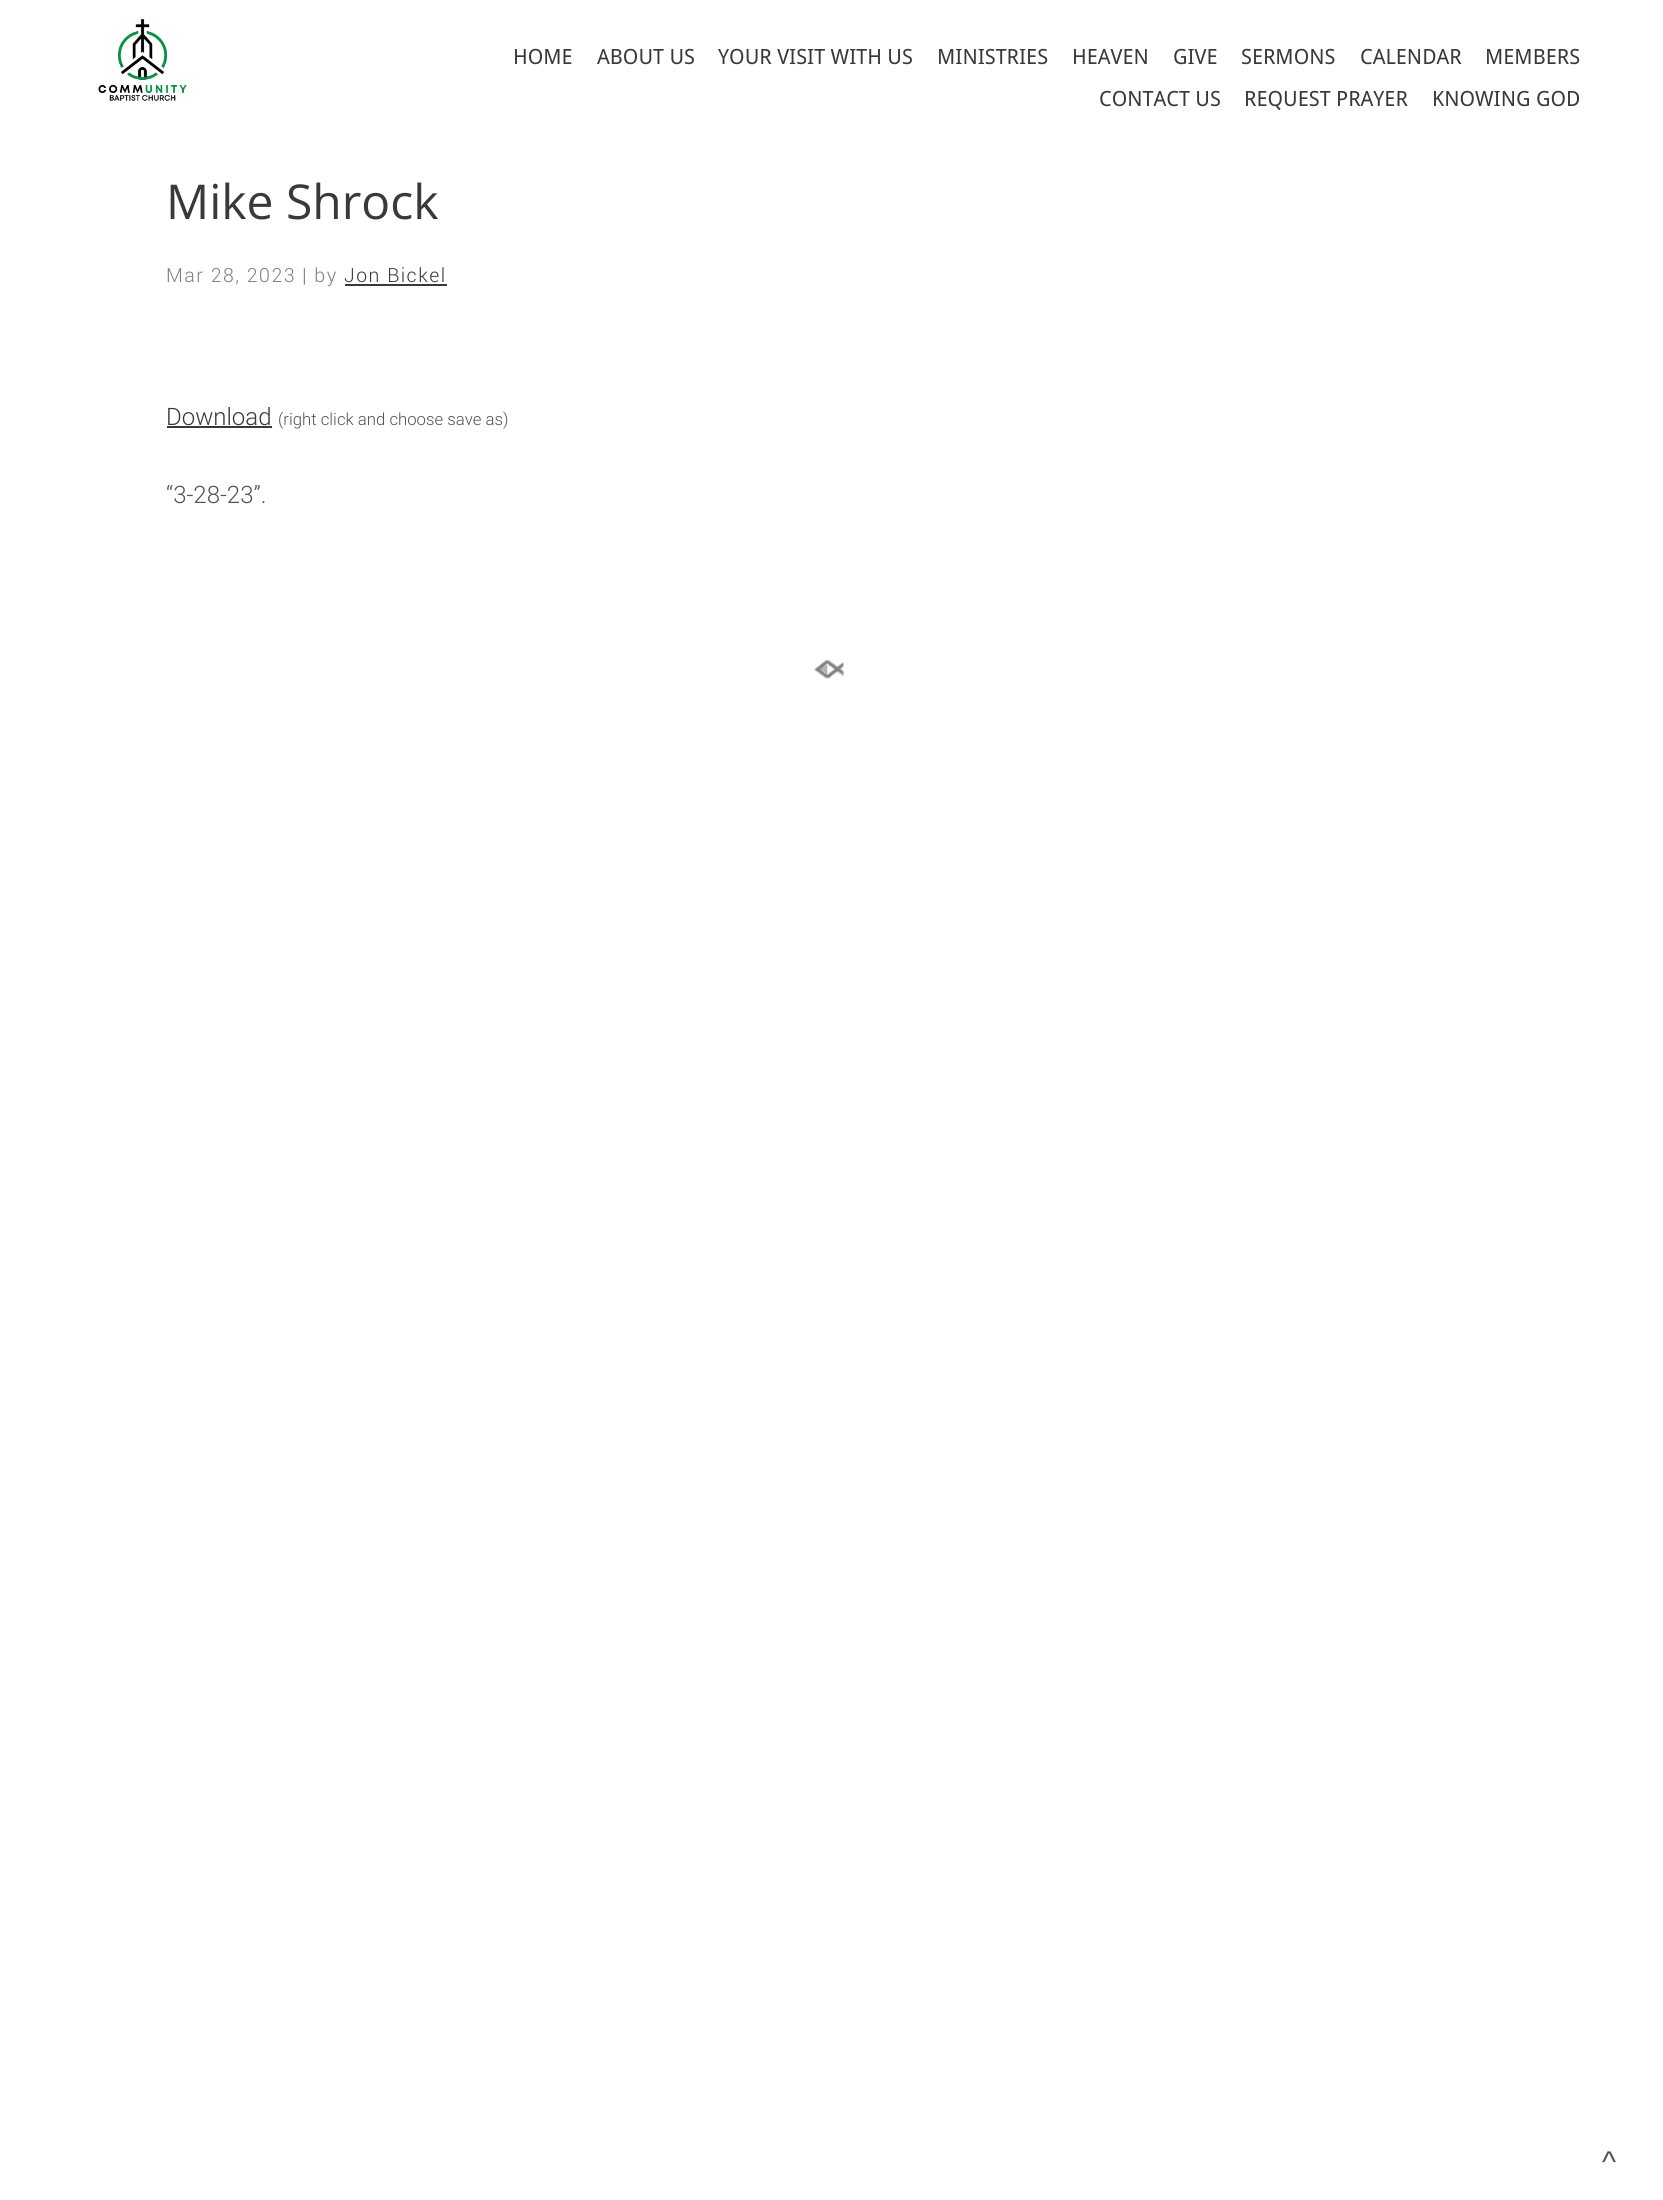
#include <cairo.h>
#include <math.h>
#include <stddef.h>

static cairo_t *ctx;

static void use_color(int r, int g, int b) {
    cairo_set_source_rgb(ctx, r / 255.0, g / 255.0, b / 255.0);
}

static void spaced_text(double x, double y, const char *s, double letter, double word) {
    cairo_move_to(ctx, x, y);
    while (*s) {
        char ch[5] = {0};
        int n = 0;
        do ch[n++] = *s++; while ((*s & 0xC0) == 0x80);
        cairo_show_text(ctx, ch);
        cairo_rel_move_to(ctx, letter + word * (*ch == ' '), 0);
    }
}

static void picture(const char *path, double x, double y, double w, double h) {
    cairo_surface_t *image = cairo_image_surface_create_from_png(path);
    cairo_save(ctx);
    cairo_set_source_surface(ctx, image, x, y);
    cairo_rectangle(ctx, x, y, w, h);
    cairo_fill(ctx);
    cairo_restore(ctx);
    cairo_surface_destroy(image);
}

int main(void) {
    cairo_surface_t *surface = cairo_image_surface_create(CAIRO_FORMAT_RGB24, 1663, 2200);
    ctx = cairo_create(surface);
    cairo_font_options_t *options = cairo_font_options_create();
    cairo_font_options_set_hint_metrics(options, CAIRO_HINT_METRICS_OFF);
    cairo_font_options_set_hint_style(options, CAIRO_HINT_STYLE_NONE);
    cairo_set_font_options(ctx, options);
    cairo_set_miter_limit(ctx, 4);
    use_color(255, 255, 255);
    cairo_paint(ctx);
    picture("img1.png", 98, 19, 89, 82);
    cairo_select_font_face(ctx, "Droid Sans", CAIRO_FONT_SLANT_NORMAL, CAIRO_FONT_WEIGHT_NORMAL);
    cairo_set_font_size(ctx, 21);
    use_color(58, 57, 57);
    cairo_move_to(ctx, 513, 64);
    cairo_show_text(ctx, "HOME");
    cairo_move_to(ctx, 597, 64);
    cairo_show_text(ctx, "ABOUT US");
    cairo_move_to(ctx, 718, 64);
    cairo_show_text(ctx, "YOUR VISIT WITH US");
    cairo_move_to(ctx, 937, 64);
    cairo_show_text(ctx, "MINISTRIES");
    cairo_move_to(ctx, 1072, 64);
    cairo_show_text(ctx, "HEAVEN");
    cairo_move_to(ctx, 1173, 64);
    cairo_show_text(ctx, "GIVE");
    cairo_move_to(ctx, 1241, 64);
    cairo_show_text(ctx, "SERMONS");
    cairo_move_to(ctx, 1360, 64);
    cairo_show_text(ctx, "CALENDAR");
    cairo_move_to(ctx, 1485, 64);
    cairo_show_text(ctx, "MEMBERS");
    cairo_move_to(ctx, 1099, 106);
    cairo_show_text(ctx, "CONTACT US");
    cairo_move_to(ctx, 1244, 106);
    cairo_show_text(ctx, "REQUEST PRAYER");
    cairo_move_to(ctx, 1432, 106);
    cairo_show_text(ctx, "KNOWING GOD");
    cairo_select_font_face(ctx, "Open Sans", CAIRO_FONT_SLANT_NORMAL, CAIRO_FONT_WEIGHT_NORMAL);
    cairo_set_font_size(ctx, 48);
    cairo_move_to(ctx, 166, 219);
    cairo_show_text(ctx, "Mike Shrock");
    cairo_select_font_face(ctx, "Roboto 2 Light", CAIRO_FONT_SLANT_NORMAL, CAIRO_FONT_WEIGHT_NORMAL);
    cairo_set_font_size(ctx, 19.5);
    use_color(129, 127, 123);
    spaced_text(166, 282, "Mar 28, 2023 | by", 1.5, 0);
    use_color(58, 57, 57);
    spaced_text(344, 282, "Jon Bickel", 1.5, 0);
    cairo_rectangle(ctx, 345, 284, 102, 2);
    cairo_fill(ctx);
    cairo_select_font_face(ctx, "Roboto Light", CAIRO_FONT_SLANT_NORMAL, CAIRO_FONT_WEIGHT_NORMAL);
    cairo_set_font_size(ctx, 24);
    cairo_move_to(ctx, 166, 425);
    cairo_show_text(ctx, "Download");
    cairo_set_font_size(ctx, 16.75);
    use_color(82, 82, 82);
    cairo_move_to(ctx, 278, 425);
    cairo_show_text(ctx, "(right click and choose save as)");
    use_color(58, 57, 57);
    cairo_rectangle(ctx, 167, 426, 105, 2);
    cairo_fill(ctx);
    cairo_set_font_size(ctx, 24);
    use_color(82, 82, 82);
    cairo_move_to(ctx, 166, 503);
    cairo_show_text(ctx, "“3-28-23”.");
    picture("img2.png", 814, 660, 30, 19);
    cairo_select_font_face(ctx, "Liberation Sans", CAIRO_FONT_SLANT_NORMAL, CAIRO_FONT_WEIGHT_NORMAL);
    cairo_set_font_size(ctx, 30);
    cairo_move_to(ctx, 1602, 2172);
    cairo_show_text(ctx, "^");
    cairo_surface_write_to_png(surface, "result.png");
    cairo_font_options_destroy(options);
    cairo_destroy(ctx);
    cairo_surface_destroy(surface);
    return 0;
}
